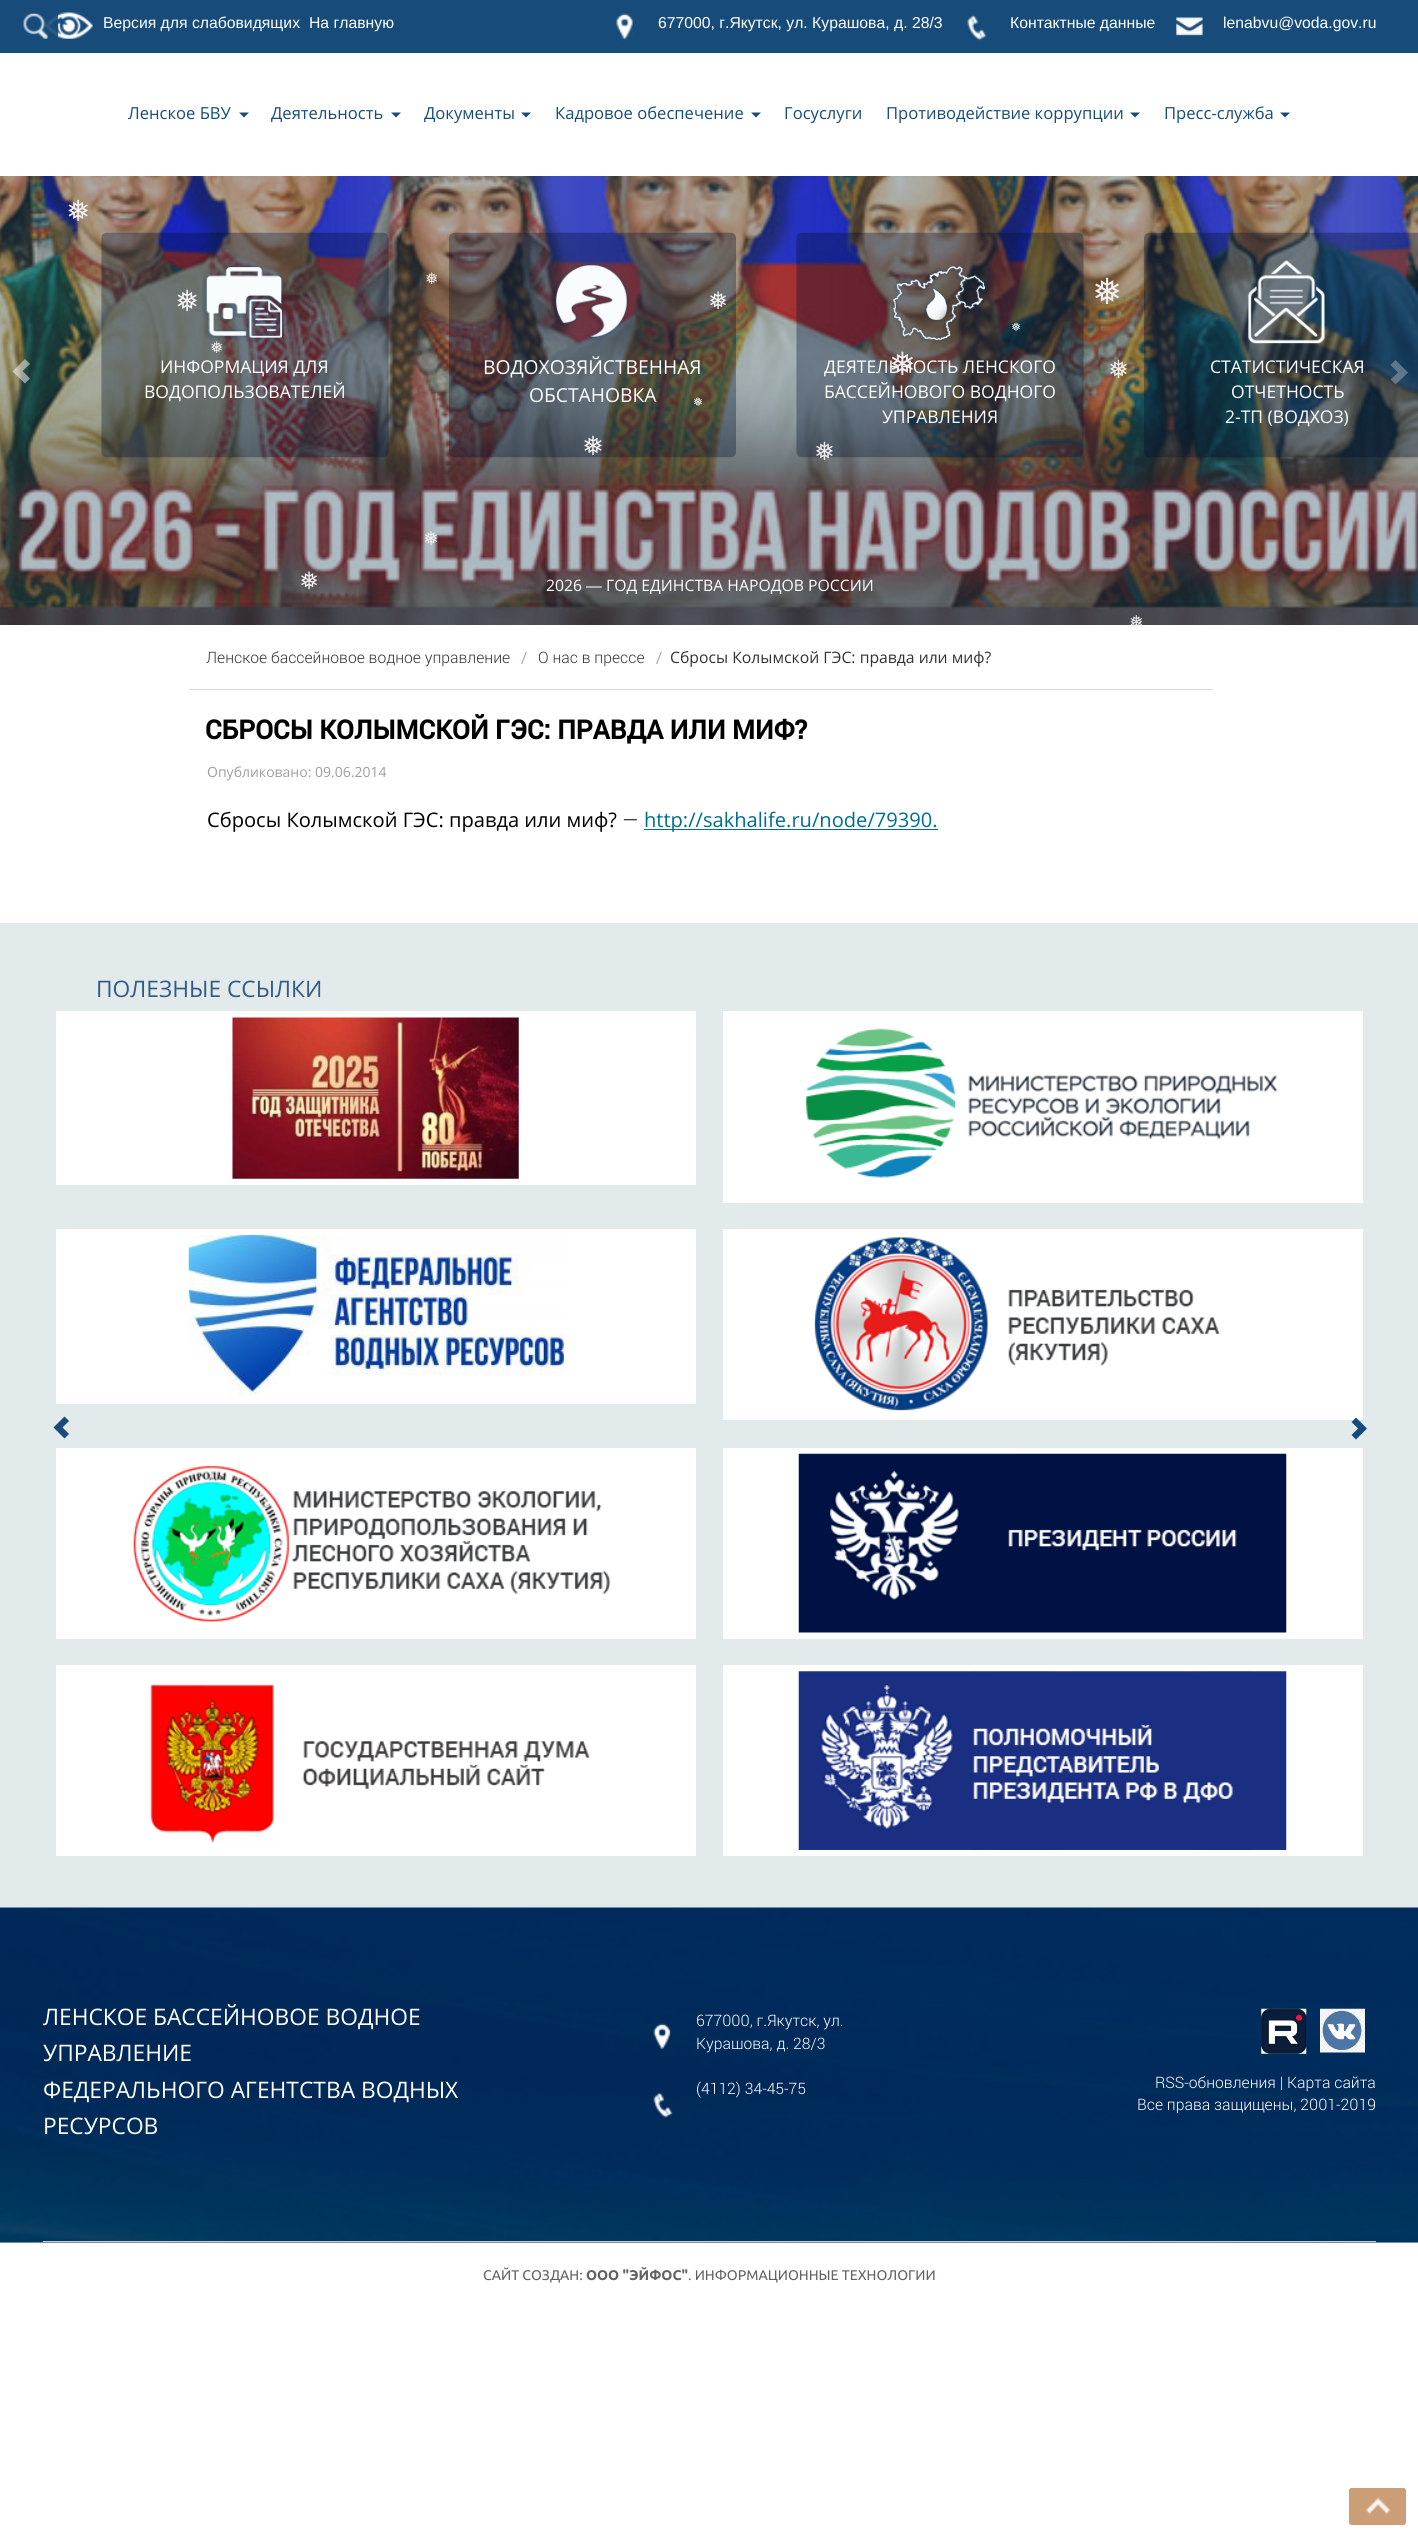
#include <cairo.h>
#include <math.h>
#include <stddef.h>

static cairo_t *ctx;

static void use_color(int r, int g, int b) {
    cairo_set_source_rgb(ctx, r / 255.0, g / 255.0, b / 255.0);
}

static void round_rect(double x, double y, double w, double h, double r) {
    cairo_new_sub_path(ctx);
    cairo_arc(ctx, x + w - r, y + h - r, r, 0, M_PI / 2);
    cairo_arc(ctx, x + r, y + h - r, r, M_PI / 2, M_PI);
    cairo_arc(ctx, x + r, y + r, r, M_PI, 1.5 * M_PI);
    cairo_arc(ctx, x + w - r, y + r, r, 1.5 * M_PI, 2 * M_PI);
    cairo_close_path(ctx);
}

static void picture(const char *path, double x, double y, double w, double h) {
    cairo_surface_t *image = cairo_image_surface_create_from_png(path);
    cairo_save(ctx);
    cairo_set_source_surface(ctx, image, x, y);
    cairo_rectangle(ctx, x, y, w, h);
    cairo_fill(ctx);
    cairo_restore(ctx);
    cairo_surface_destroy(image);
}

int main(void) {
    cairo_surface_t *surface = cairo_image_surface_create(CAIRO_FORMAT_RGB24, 1418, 2546);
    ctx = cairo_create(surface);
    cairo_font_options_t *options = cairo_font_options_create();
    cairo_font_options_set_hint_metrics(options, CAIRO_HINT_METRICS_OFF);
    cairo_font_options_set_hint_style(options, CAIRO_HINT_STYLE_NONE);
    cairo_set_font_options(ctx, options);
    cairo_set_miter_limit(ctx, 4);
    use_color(255, 255, 255);
    cairo_paint(ctx);
    use_color(23, 76, 122);
    cairo_rectangle(ctx, 0, 0, 1418, 53);
    cairo_fill(ctx);
    picture("img1.png", 44, 12, 49, 27);
    cairo_select_font_face(ctx, "Liberation Sans", CAIRO_FONT_SLANT_NORMAL, CAIRO_FONT_WEIGHT_NORMAL);
    cairo_set_font_size(ctx, 15.75);
    use_color(255, 255, 255);
    cairo_move_to(ctx, 103, 28);
    cairo_show_text(ctx, "Версия для слабовидящих");
    cairo_move_to(ctx, 309, 28);
    cairo_show_text(ctx, "На главную");
    picture("img2.png", 616, 13, 17, 28);
    cairo_move_to(ctx, 658, 28);
    cairo_show_text(ctx, "677000, г.Якутск, ул. Курашова, д. 28/3");
    picture("img3.png", 967, 15, 20, 26);
    cairo_move_to(ctx, 1010, 28);
    cairo_show_text(ctx, "Контактные данные");
    picture("img4.png", 1176, 17, 27, 19);
    cairo_move_to(ctx, 1223, 28);
    cairo_show_text(ctx, "lenabvu@voda.gov.ru");
    cairo_select_font_face(ctx, "Open Sans", CAIRO_FONT_SLANT_NORMAL, CAIRO_FONT_WEIGHT_NORMAL);
    cairo_set_font_size(ctx, 16.6);
    use_color(23, 76, 122);
    cairo_move_to(ctx, 128, 119);
    cairo_show_text(ctx, "Ленское БВУ");
    cairo_new_path(ctx);
    cairo_move_to(ctx, 239, 112.5);
    cairo_line_to(ctx, 249, 112.5);
    cairo_line_to(ctx, 244, 117.5);
    cairo_close_path(ctx);
    cairo_fill(ctx);
    cairo_move_to(ctx, 271, 119);
    cairo_show_text(ctx, "Деятельность");
    cairo_new_path(ctx);
    cairo_move_to(ctx, 391, 112.5);
    cairo_line_to(ctx, 401, 112.5);
    cairo_line_to(ctx, 396, 117.5);
    cairo_close_path(ctx);
    cairo_fill(ctx);
    cairo_move_to(ctx, 424, 119);
    cairo_show_text(ctx, "Документы");
    cairo_new_path(ctx);
    cairo_move_to(ctx, 521, 112.5);
    cairo_line_to(ctx, 531, 112.5);
    cairo_line_to(ctx, 526, 117.5);
    cairo_close_path(ctx);
    cairo_fill(ctx);
    cairo_move_to(ctx, 555, 119);
    cairo_show_text(ctx, "Кадровое обеспечение");
    cairo_new_path(ctx);
    cairo_move_to(ctx, 751, 112.5);
    cairo_line_to(ctx, 761, 112.5);
    cairo_line_to(ctx, 756, 117.5);
    cairo_close_path(ctx);
    cairo_fill(ctx);
    cairo_move_to(ctx, 784, 119);
    cairo_show_text(ctx, "Госуслуги");
    cairo_move_to(ctx, 886, 119);
    cairo_show_text(ctx, "Противодействие коррупции");
    cairo_new_path(ctx);
    cairo_move_to(ctx, 1130, 112.5);
    cairo_line_to(ctx, 1140, 112.5);
    cairo_line_to(ctx, 1135, 117.5);
    cairo_close_path(ctx);
    cairo_fill(ctx);
    cairo_move_to(ctx, 1164, 119);
    cairo_show_text(ctx, "Пресс-служба");
    cairo_new_path(ctx);
    cairo_move_to(ctx, 1280, 112.5);
    cairo_line_to(ctx, 1290, 112.5);
    cairo_line_to(ctx, 1285, 117.5);
    cairo_close_path(ctx);
    cairo_fill(ctx);
    use_color(52, 87, 108);
    cairo_rectangle(ctx, 0, 176, 1418, 449);
    cairo_fill(ctx);
    picture("img13.png", 0, 176, 1418, 449);
    cairo_select_font_face(ctx, "DejaVu Sans", CAIRO_FONT_SLANT_NORMAL, CAIRO_FONT_WEIGHT_NORMAL);
    cairo_set_font_size(ctx, 29);
    use_color(239, 239, 239);
    cairo_move_to(ctx, 66, 221);
    cairo_show_text(ctx, "❅");
    picture("img5.png", 101, 232, 288, 226);
    cairo_move_to(ctx, 175, 311);
    cairo_show_text(ctx, "❅");
    cairo_set_font_size(ctx, 16);
    cairo_move_to(ctx, 425, 284);
    cairo_show_text(ctx, "❅");
    picture("img7.png", 449, 232, 287, 226);
    cairo_set_font_size(ctx, 24);
    cairo_move_to(ctx, 708, 309);
    cairo_show_text(ctx, "❅");
    cairo_set_font_size(ctx, 36);
    cairo_move_to(ctx, 1092, 304);
    cairo_show_text(ctx, "❅");
    picture("img9.png", 796, 232, 288, 226);
    cairo_set_font_size(ctx, 12);
    cairo_move_to(ctx, 1011, 331);
    cairo_show_text(ctx, "❅");
    picture("img6.png", 201, 265, 83, 77);
    cairo_set_font_size(ctx, 16);
    cairo_move_to(ctx, 210, 353);
    cairo_show_text(ctx, "❅");
    cairo_select_font_face(ctx, "Open Sans", CAIRO_FONT_SLANT_NORMAL, CAIRO_FONT_WEIGHT_NORMAL);
    cairo_set_font_size(ctx, 17.5);
    use_color(255, 255, 255);
    cairo_move_to(ctx, 824, 373);
    cairo_show_text(ctx, "ДЕЯТЕЛЬНОСТЬ ЛЕНСКОГО");
    cairo_select_font_face(ctx, "DejaVu Sans", CAIRO_FONT_SLANT_NORMAL, CAIRO_FONT_WEIGHT_NORMAL);
    cairo_set_font_size(ctx, 32);
    use_color(239, 239, 239);
    cairo_move_to(ctx, 889, 375);
    cairo_show_text(ctx, "❅");
    cairo_set_font_size(ctx, 25);
    cairo_move_to(ctx, 1108, 378);
    cairo_show_text(ctx, "❅");
    cairo_set_font_size(ctx, 12);
    cairo_move_to(ctx, 693, 406);
    cairo_show_text(ctx, "❅");
    cairo_set_font_size(ctx, 26.25);
    cairo_move_to(ctx, 582, 455);
    cairo_show_text(ctx, "❅");
    cairo_set_font_size(ctx, 25);
    cairo_move_to(ctx, 814, 460);
    cairo_show_text(ctx, "❅");
    cairo_set_font_size(ctx, 19);
    cairo_move_to(ctx, 423, 545);
    cairo_show_text(ctx, "❅");
    cairo_set_font_size(ctx, 24);
    cairo_move_to(ctx, 299, 589);
    cairo_show_text(ctx, "❅");
    cairo_set_font_size(ctx, 17.5);
    cairo_move_to(ctx, 1129, 628);
    cairo_show_text(ctx, "❅");
    cairo_set_source_rgba(ctx, 1, 1, 1, 0.5);
    cairo_new_path(ctx);
    cairo_move_to(ctx, 12.5, 371.5);
    cairo_line_to(ctx, 25, 383.5);
    cairo_line_to(ctx, 30, 378.5);
    cairo_line_to(ctx, 22.5, 371);
    cairo_line_to(ctx, 30, 364);
    cairo_line_to(ctx, 25, 359);
    cairo_close_path(ctx);
    cairo_fill(ctx);
    cairo_select_font_face(ctx, "Open Sans", CAIRO_FONT_SLANT_NORMAL, CAIRO_FONT_WEIGHT_NORMAL);
    use_color(255, 255, 255);
    cairo_move_to(ctx, 160, 373);
    cairo_show_text(ctx, "ИНФОРМАЦИЯ ДЛЯ");
    cairo_move_to(ctx, 144, 398);
    cairo_show_text(ctx, "ВОДОПОЛЬЗОВАТЕЛЕЙ");
    picture("img8.png", 551, 263, 78, 78);
    cairo_set_font_size(ctx, 19.25);
    cairo_move_to(ctx, 483, 374);
    cairo_show_text(ctx, "ВОДОХОЗЯЙСТВЕННАЯ");
    cairo_move_to(ctx, 529, 402);
    cairo_show_text(ctx, "ОБСТАНОВКА");
    picture("img10.png", 892, 265, 94, 78);
    cairo_set_font_size(ctx, 17.5);
    cairo_move_to(ctx, 824, 398);
    cairo_show_text(ctx, "БАССЕЙНОВОГО ВОДНОГО");
    cairo_move_to(ctx, 882, 423);
    cairo_show_text(ctx, "УПРАВЛЕНИЯ");
    cairo_set_source_rgba(ctx, 1, 1, 1, 0.5);
    cairo_new_path(ctx);
    cairo_move_to(ctx, 1390.5, 379.5);
    cairo_line_to(ctx, 1398, 372.5);
    cairo_line_to(ctx, 1390.5, 365);
    cairo_line_to(ctx, 1395.5, 360);
    cairo_line_to(ctx, 1408, 372.5);
    cairo_line_to(ctx, 1395.5, 384.5);
    cairo_close_path(ctx);
    cairo_fill(ctx);
    picture("img11.png", 1144, 232, 274, 226);
    picture("img12.png", 1248, 260, 77, 84);
    use_color(255, 255, 255);
    cairo_move_to(ctx, 1210, 373);
    cairo_show_text(ctx, "СТАТИСТИЧЕСКАЯ");
    cairo_move_to(ctx, 1231, 398);
    cairo_show_text(ctx, "ОТЧЕТНОСТЬ");
    cairo_move_to(ctx, 1225, 423);
    cairo_show_text(ctx, "2-ТП (ВОДХОЗ)");
    cairo_set_font_size(ctx, 15.75);
    cairo_move_to(ctx, 546, 591);
    cairo_show_text(ctx, "2026");
    cairo_select_font_face(ctx, "Liberation Sans", CAIRO_FONT_SLANT_NORMAL, CAIRO_FONT_WEIGHT_NORMAL);
    cairo_move_to(ctx, 586, 591);
    cairo_show_text(ctx, "—");
    cairo_select_font_face(ctx, "Open Sans", CAIRO_FONT_SLANT_NORMAL, CAIRO_FONT_WEIGHT_NORMAL);
    cairo_move_to(ctx, 606, 591);
    cairo_show_text(ctx, "ГОД ЕДИНСТВА НАРОДОВ РОССИИ");
    use_color(218, 215, 215);
    cairo_rectangle(ctx, 189, 689, 1024, 1);
    cairo_fill(ctx);
    cairo_select_font_face(ctx, "Roboto Light", CAIRO_FONT_SLANT_NORMAL, CAIRO_FONT_WEIGHT_NORMAL);
    use_color(51, 51, 51);
    cairo_move_to(ctx, 206, 663);
    cairo_show_text(ctx, "Ленское бассейновое водное управление");
    use_color(136, 126, 121);
    cairo_move_to(ctx, 521, 663);
    cairo_show_text(ctx, "/");
    use_color(51, 51, 51);
    cairo_move_to(ctx, 538, 663);
    cairo_show_text(ctx, "О нас в прессе");
    use_color(136, 126, 121);
    cairo_move_to(ctx, 656, 663);
    cairo_show_text(ctx, "/");
    cairo_select_font_face(ctx, "Open Sans", CAIRO_FONT_SLANT_NORMAL, CAIRO_FONT_WEIGHT_NORMAL);
    use_color(51, 51, 51);
    cairo_move_to(ctx, 670, 663);
    cairo_show_text(ctx, "Сбросы Колымской ГЭС: правда или миф?");
    cairo_select_font_face(ctx, "Roboto", CAIRO_FONT_SLANT_NORMAL, CAIRO_FONT_WEIGHT_BOLD);
    cairo_set_font_size(ctx, 26.25);
    use_color(0, 0, 0);
    cairo_move_to(ctx, 205, 739);
    cairo_show_text(ctx, "СБРОСЫ КОЛЫМСКОЙ ГЭС: ПРАВДА ИЛИ МИФ?");
    cairo_select_font_face(ctx, "Open Sans", CAIRO_FONT_SLANT_NORMAL, CAIRO_FONT_WEIGHT_NORMAL);
    cairo_set_font_size(ctx, 14);
    use_color(160, 158, 158);
    cairo_move_to(ctx, 207, 777);
    cairo_show_text(ctx, "Опубликовано: 09.06.2014");
    cairo_set_font_size(ctx, 20.1);
    use_color(0, 0, 0);
    cairo_move_to(ctx, 207, 827);
    cairo_show_text(ctx, "Сбросы Колымской ГЭС: правда или миф?");
    cairo_select_font_face(ctx, "Roboto Light", CAIRO_FONT_SLANT_NORMAL, CAIRO_FONT_WEIGHT_NORMAL);
    cairo_move_to(ctx, 622, 827);
    cairo_show_text(ctx, "—");
    use_color(0, 108, 149);
    cairo_rectangle(ctx, 644, 829, 294, 1);
    cairo_fill(ctx);
    cairo_select_font_face(ctx, "Open Sans", CAIRO_FONT_SLANT_NORMAL, CAIRO_FONT_WEIGHT_NORMAL);
    cairo_move_to(ctx, 644, 827);
    cairo_show_text(ctx, "http://sakhalife.ru/node/79390.");
    use_color(226, 234, 236);
    cairo_rectangle(ctx, 0, 923, 1418, 1320);
    cairo_fill(ctx);
    cairo_set_font_size(ctx, 22.75);
    use_color(49, 91, 131);
    cairo_move_to(ctx, 96, 997);
    cairo_show_text(ctx, "ПОЛЕЗНЫЕ ССЫЛКИ");
    use_color(255, 255, 255);
    cairo_rectangle(ctx, 56, 1011, 640, 174);
    cairo_fill(ctx);
    picture("img14.png", 232, 1017, 287, 162);
    cairo_rectangle(ctx, 723, 1011, 640, 192);
    cairo_fill(ctx);
    picture("img15.png", 806, 1028, 472, 150);
    cairo_rectangle(ctx, 56, 1229, 640, 175);
    cairo_fill(ctx);
    picture("img16.png", 188, 1235, 376, 161);
    cairo_rectangle(ctx, 723, 1229, 640, 191);
    cairo_fill(ctx);
    picture("img17.png", 814, 1237, 406, 174);
    cairo_rectangle(ctx, 56, 1448, 640, 191);
    cairo_fill(ctx);
    picture("img18.png", 133, 1466, 478, 156);
    cairo_rectangle(ctx, 723, 1448, 640, 191);
    cairo_fill(ctx);
    picture("img19.png", 798, 1453, 489, 180);
    cairo_rectangle(ctx, 56, 1665, 640, 191);
    cairo_fill(ctx);
    picture("img20.png", 150, 1684, 440, 159);
    cairo_rectangle(ctx, 723, 1665, 640, 191);
    cairo_fill(ctx);
    picture("img21.png", 798, 1671, 489, 179);
    use_color(23, 76, 122);
    cairo_new_path(ctx);
    cairo_move_to(ctx, 53.5, 1427.5);
    cairo_line_to(ctx, 64.5, 1438.5);
    cairo_line_to(ctx, 69, 1434);
    cairo_line_to(ctx, 62.5, 1427.5);
    cairo_line_to(ctx, 69, 1421);
    cairo_line_to(ctx, 64.5, 1416.5);
    cairo_close_path(ctx);
    cairo_fill(ctx);
    cairo_new_path(ctx);
    cairo_move_to(ctx, 1351.5, 1435);
    cairo_line_to(ctx, 1358, 1428.5);
    cairo_line_to(ctx, 1351.5, 1422);
    cairo_line_to(ctx, 1356, 1417.5);
    cairo_line_to(ctx, 1367, 1428.5);
    cairo_line_to(ctx, 1356, 1439.5);
    cairo_close_path(ctx);
    cairo_fill(ctx);
    cairo_set_source_rgba(ctx, 0.09, 0.298, 0.478, 0.9);
    round_rect(13, 4, 45, 45, 2.5);
    cairo_fill(ctx);
    picture("img22.png", 23, 13, 26, 26);
    picture("img23.png", 0, 1907, 1418, 336);
    use_color(255, 255, 255);
    cairo_move_to(ctx, 43, 2025);
    cairo_show_text(ctx, "ЛЕНСКОЕ БАССЕЙНОВОЕ ВОДНОЕ");
    cairo_move_to(ctx, 43, 2061);
    cairo_show_text(ctx, "УПРАВЛЕНИЕ");
    cairo_move_to(ctx, 43, 2098);
    cairo_show_text(ctx, "ФЕДЕРАЛЬНОГО АГЕНТСТВА ВОДНЫХ");
    cairo_move_to(ctx, 43, 2134);
    cairo_show_text(ctx, "РЕСУРСОВ");
    picture("img24.png", 653, 2023, 18, 27);
    cairo_select_font_face(ctx, "Roboto Light", CAIRO_FONT_SLANT_NORMAL, CAIRO_FONT_WEIGHT_NORMAL);
    cairo_set_font_size(ctx, 15.75);
    cairo_move_to(ctx, 696, 2026);
    cairo_show_text(ctx, "677000, г.Якутск, ул.");
    cairo_move_to(ctx, 696, 2049);
    cairo_show_text(ctx, "Курашова, д. 28/3");
    cairo_move_to(ctx, 696, 2094);
    cairo_show_text(ctx, "(4112) 34-45-75");
    picture("img25.png", 653, 2092, 20, 26);
    picture("img26.png", 1261, 2008, 46, 46);
    picture("img27.png", 1320, 2008, 45, 45);
    cairo_move_to(ctx, 1155, 2088);
    cairo_show_text(ctx, "RSS-обновления | Карта сайта");
    cairo_move_to(ctx, 1137, 2110);
    cairo_show_text(ctx, "Все права защищены, 2001-2019");
    use_color(204, 204, 204);
    cairo_rectangle(ctx, 43, 2241, 1333, 1);
    cairo_fill(ctx);
    cairo_select_font_face(ctx, "Ubuntu", CAIRO_FONT_SLANT_NORMAL, CAIRO_FONT_WEIGHT_NORMAL);
    cairo_set_font_size(ctx, 14);
    use_color(100, 96, 99);
    cairo_move_to(ctx, 483, 2280);
    cairo_show_text(ctx, "САЙТ СОЗДАН:");
    cairo_select_font_face(ctx, "Ubuntu", CAIRO_FONT_SLANT_NORMAL, CAIRO_FONT_WEIGHT_BOLD);
    cairo_move_to(ctx, 586, 2280);
    cairo_show_text(ctx, "ООО \"ЭЙФОС\"");
    cairo_select_font_face(ctx, "Ubuntu", CAIRO_FONT_SLANT_NORMAL, CAIRO_FONT_WEIGHT_NORMAL);
    cairo_move_to(ctx, 688, 2280);
    cairo_show_text(ctx, ". ИНФОРМАЦИОННЫЕ ТЕХНОЛОГИИ");
    use_color(203, 158, 119);
    round_rect(1349, 2488, 57, 37, 2.5);
    cairo_fill(ctx);
    picture("img28.png", 1365, 2497, 26, 18);
    cairo_surface_write_to_png(surface, "result.png");
    cairo_font_options_destroy(options);
    cairo_destroy(ctx);
    cairo_surface_destroy(surface);
    return 0;
}
